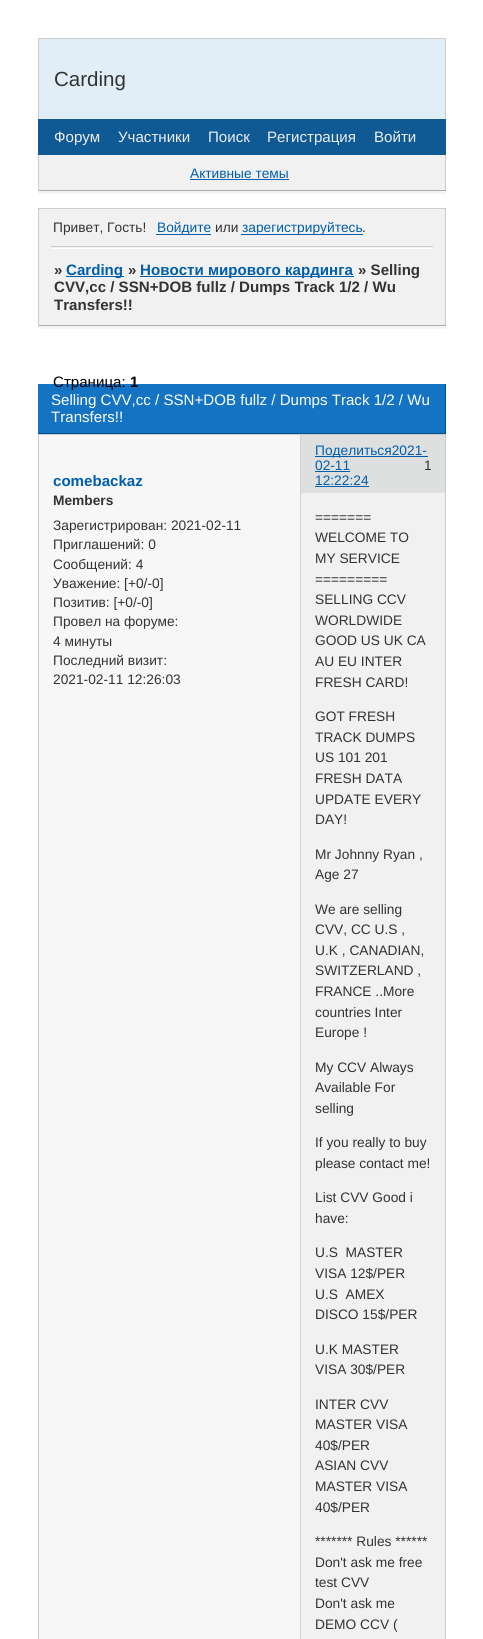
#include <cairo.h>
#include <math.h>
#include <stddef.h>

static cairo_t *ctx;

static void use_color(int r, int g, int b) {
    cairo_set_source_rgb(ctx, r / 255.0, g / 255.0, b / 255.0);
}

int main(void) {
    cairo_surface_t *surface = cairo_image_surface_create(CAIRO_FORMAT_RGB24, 483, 1639);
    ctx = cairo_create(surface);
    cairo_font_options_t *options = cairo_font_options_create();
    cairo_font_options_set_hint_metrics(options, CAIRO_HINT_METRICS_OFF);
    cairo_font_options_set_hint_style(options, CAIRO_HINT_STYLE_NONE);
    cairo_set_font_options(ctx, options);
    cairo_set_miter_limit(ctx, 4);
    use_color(255, 255, 255);
    cairo_paint(ctx);
    use_color(225, 237, 247);
    cairo_rectangle(ctx, 39, 39, 406, 80);
    cairo_fill(ctx);
    use_color(204, 204, 204);
    cairo_rectangle(ctx, 38, 38, 408, 1);
    cairo_fill(ctx);
    cairo_rectangle(ctx, 445, 38, 1, 81);
    cairo_fill(ctx);
    cairo_rectangle(ctx, 38, 38, 1, 81);
    cairo_fill(ctx);
    cairo_select_font_face(ctx, "Liberation Sans", CAIRO_FONT_SLANT_NORMAL, CAIRO_FONT_WEIGHT_NORMAL);
    cairo_set_font_size(ctx, 20.5);
    use_color(51, 51, 51);
    cairo_move_to(ctx, 54, 86);
    cairo_show_text(ctx, "Carding");
    use_color(15, 89, 149);
    cairo_rectangle(ctx, 38, 119, 408, 36);
    cairo_fill(ctx);
    cairo_set_font_size(ctx, 15.1);
    use_color(238, 238, 238);
    cairo_move_to(ctx, 54, 142);
    cairo_show_text(ctx, "Форум");
    cairo_move_to(ctx, 118, 142);
    cairo_show_text(ctx, "Участники");
    cairo_move_to(ctx, 208, 142);
    cairo_show_text(ctx, "Поиск");
    cairo_move_to(ctx, 267, 142);
    cairo_show_text(ctx, "Регистрация");
    cairo_move_to(ctx, 374, 142);
    cairo_show_text(ctx, "Войти");
    use_color(245, 245, 245);
    cairo_rectangle(ctx, 38, 191, 408, 3);
    cairo_fill(ctx);
    use_color(241, 241, 241);
    cairo_rectangle(ctx, 39, 155, 406, 35);
    cairo_fill(ctx);
    use_color(204, 204, 204);
    cairo_rectangle(ctx, 445, 155, 1, 36);
    cairo_fill(ctx);
    use_color(170, 170, 170);
    cairo_rectangle(ctx, 38, 190, 408, 1);
    cairo_fill(ctx);
    use_color(204, 204, 204);
    cairo_rectangle(ctx, 38, 155, 1, 36);
    cairo_fill(ctx);
    cairo_set_font_size(ctx, 13.75);
    use_color(0, 94, 171);
    cairo_move_to(ctx, 190, 178);
    cairo_show_text(ctx, "Активные темы");
    cairo_rectangle(ctx, 190, 179, 99, 1);
    cairo_fill(ctx);
    use_color(241, 241, 241);
    cairo_rectangle(ctx, 39, 209, 406, 116);
    cairo_fill(ctx);
    use_color(204, 204, 204);
    cairo_rectangle(ctx, 38, 208, 408, 1);
    cairo_fill(ctx);
    cairo_rectangle(ctx, 445, 208, 1, 118);
    cairo_fill(ctx);
    cairo_rectangle(ctx, 38, 208, 1, 41);
    cairo_fill(ctx);
    use_color(51, 51, 51);
    cairo_move_to(ctx, 53, 232);
    cairo_show_text(ctx, "Привет, Гость!");
    use_color(0, 94, 171);
    cairo_rectangle(ctx, 156, 234, 55, 1);
    cairo_fill(ctx);
    cairo_move_to(ctx, 157, 232);
    cairo_show_text(ctx, "Войдите");
    use_color(51, 51, 51);
    cairo_move_to(ctx, 215, 232);
    cairo_show_text(ctx, "или");
    use_color(0, 94, 171);
    cairo_rectangle(ctx, 241, 234, 122, 1);
    cairo_fill(ctx);
    cairo_move_to(ctx, 242, 232);
    cairo_show_text(ctx, "зарегистрируйтесь");
    use_color(51, 51, 51);
    cairo_move_to(ctx, 362, 232);
    cairo_show_text(ctx, ".");
    use_color(204, 204, 204);
    cairo_rectangle(ctx, 51, 246, 382, 1);
    cairo_fill(ctx);
    use_color(255, 255, 255);
    cairo_rectangle(ctx, 51, 248, 382, 1);
    cairo_fill(ctx);
    use_color(245, 245, 245);
    cairo_rectangle(ctx, 38, 326, 408, 3);
    cairo_fill(ctx);
    use_color(170, 170, 170);
    cairo_rectangle(ctx, 38, 325, 408, 1);
    cairo_fill(ctx);
    use_color(204, 204, 204);
    cairo_rectangle(ctx, 38, 246, 1, 80);
    cairo_fill(ctx);
    cairo_select_font_face(ctx, "Liberation Sans", CAIRO_FONT_SLANT_NORMAL, CAIRO_FONT_WEIGHT_BOLD);
    cairo_set_font_size(ctx, 15.1);
    use_color(51, 51, 51);
    cairo_move_to(ctx, 54, 275);
    cairo_show_text(ctx, "»");
    use_color(0, 94, 171);
    cairo_rectangle(ctx, 66, 276, 58, 1);
    cairo_fill(ctx);
    cairo_move_to(ctx, 66, 275);
    cairo_show_text(ctx, "Carding");
    use_color(51, 51, 51);
    cairo_move_to(ctx, 128, 275);
    cairo_show_text(ctx, "»");
    use_color(0, 94, 171);
    cairo_rectangle(ctx, 140, 276, 214, 1);
    cairo_fill(ctx);
    cairo_move_to(ctx, 140, 275);
    cairo_show_text(ctx, "Новости мирового кардинга");
    use_color(51, 51, 51);
    cairo_move_to(ctx, 358, 275);
    cairo_show_text(ctx, "» Selling");
    cairo_move_to(ctx, 54, 292);
    cairo_show_text(ctx, "CVV,cc / SSN+DOB fullz / Dumps Track 1/2 / Wu");
    cairo_move_to(ctx, 54, 310);
    cairo_show_text(ctx, "Transfers!!");
    use_color(20, 116, 195);
    cairo_rectangle(ctx, 38, 384, 407, 49);
    cairo_fill(ctx);
    cairo_select_font_face(ctx, "Liberation Sans", CAIRO_FONT_SLANT_NORMAL, CAIRO_FONT_WEIGHT_NORMAL);
    use_color(0, 0, 0);
    cairo_move_to(ctx, 53, 387);
    cairo_show_text(ctx, "Страница:");
    cairo_select_font_face(ctx, "Liberation Sans", CAIRO_FONT_SLANT_NORMAL, CAIRO_FONT_WEIGHT_BOLD);
    cairo_move_to(ctx, 130, 387);
    cairo_show_text(ctx, "1");
    use_color(0, 79, 144);
    cairo_rectangle(ctx, 445, 384, 1, 50);
    cairo_fill(ctx);
    cairo_rectangle(ctx, 38, 433, 408, 1);
    cairo_fill(ctx);
    cairo_select_font_face(ctx, "Liberation Sans", CAIRO_FONT_SLANT_NORMAL, CAIRO_FONT_WEIGHT_NORMAL);
    use_color(255, 255, 255);
    cairo_move_to(ctx, 51, 405);
    cairo_show_text(ctx, "Selling CVV,cc / SSN+DOB fullz / Dumps Track 1/2 / Wu");
    cairo_move_to(ctx, 51, 422);
    cairo_show_text(ctx, "Transfers!!");
    use_color(247, 247, 247);
    cairo_rectangle(ctx, 39, 435, 261, 1204);
    cairo_fill(ctx);
    use_color(204, 204, 204);
    cairo_rectangle(ctx, 38, 434, 408, 1);
    cairo_fill(ctx);
    cairo_rectangle(ctx, 445, 434, 1, 1205);
    cairo_fill(ctx);
    cairo_rectangle(ctx, 38, 434, 1, 1205);
    cairo_fill(ctx);
    use_color(222, 223, 223);
    cairo_rectangle(ctx, 301, 435, 144, 58);
    cairo_fill(ctx);
    use_color(201, 214, 224);
    cairo_rectangle(ctx, 300, 435, 1, 1204);
    cairo_fill(ctx);
    use_color(0, 94, 171);
    cairo_rectangle(ctx, 315, 456, 113, 1);
    cairo_fill(ctx);
    cairo_set_font_size(ctx, 13.75);
    cairo_move_to(ctx, 315, 455);
    cairo_show_text(ctx, "Поделиться2021-");
    cairo_move_to(ctx, 315, 470);
    cairo_show_text(ctx, "02-11");
    cairo_rectangle(ctx, 315, 471, 35, 1);
    cairo_fill(ctx);
    use_color(51, 51, 51);
    cairo_move_to(ctx, 424, 470);
    cairo_show_text(ctx, "1");
    use_color(0, 94, 171);
    cairo_move_to(ctx, 315, 485);
    cairo_show_text(ctx, "12:22:24");
    cairo_rectangle(ctx, 315, 486, 54, 1);
    cairo_fill(ctx);
    cairo_select_font_face(ctx, "Liberation Sans", CAIRO_FONT_SLANT_NORMAL, CAIRO_FONT_WEIGHT_BOLD);
    cairo_set_font_size(ctx, 15.1);
    cairo_move_to(ctx, 53, 486);
    cairo_show_text(ctx, "comebackaz");
    cairo_set_font_size(ctx, 13.75);
    use_color(51, 51, 51);
    cairo_move_to(ctx, 53, 505);
    cairo_show_text(ctx, "Members");
    cairo_select_font_face(ctx, "Liberation Sans", CAIRO_FONT_SLANT_NORMAL, CAIRO_FONT_WEIGHT_NORMAL);
    cairo_move_to(ctx, 53, 530);
    cairo_show_text(ctx, "Зарегистрирован: 2021-02-11");
    cairo_move_to(ctx, 53, 549);
    cairo_show_text(ctx, "Приглашений: 0");
    cairo_move_to(ctx, 53, 569);
    cairo_show_text(ctx, "Сообщений: 4");
    cairo_move_to(ctx, 53, 588);
    cairo_show_text(ctx, "Уважение: [+0/-0]");
    cairo_move_to(ctx, 53, 607);
    cairo_show_text(ctx, "Позитив: [+0/-0]");
    cairo_move_to(ctx, 53, 626);
    cairo_show_text(ctx, "Провел на форуме:");
    cairo_move_to(ctx, 53, 646);
    cairo_show_text(ctx, "4 минуты");
    cairo_move_to(ctx, 53, 665);
    cairo_show_text(ctx, "Последний визит:");
    cairo_move_to(ctx, 53, 684);
    cairo_show_text(ctx, "2021-02-11 12:26:03");
    use_color(241, 241, 241);
    cairo_rectangle(ctx, 301, 493, 144, 1146);
    cairo_fill(ctx);
    use_color(51, 51, 51);
    cairo_move_to(ctx, 315, 522);
    cairo_show_text(ctx, "=======");
    cairo_move_to(ctx, 315, 542);
    cairo_show_text(ctx, "WELCOME TO");
    cairo_move_to(ctx, 315, 563);
    cairo_show_text(ctx, "MY SERVICE");
    cairo_move_to(ctx, 315, 584);
    cairo_show_text(ctx, "=========");
    cairo_move_to(ctx, 315, 604);
    cairo_show_text(ctx, "SELLING CCV");
    cairo_move_to(ctx, 315, 625);
    cairo_show_text(ctx, "WORLDWIDE");
    cairo_move_to(ctx, 315, 645);
    cairo_show_text(ctx, "GOOD US UK CA");
    cairo_move_to(ctx, 315, 666);
    cairo_show_text(ctx, "AU EU INTER");
    cairo_move_to(ctx, 315, 687);
    cairo_show_text(ctx, "FRESH CARD!");
    cairo_move_to(ctx, 315, 721);
    cairo_show_text(ctx, "GOT FRESH");
    cairo_move_to(ctx, 315, 742);
    cairo_show_text(ctx, "TRACK DUMPS");
    cairo_move_to(ctx, 315, 762);
    cairo_show_text(ctx, "US 101 201");
    cairo_move_to(ctx, 315, 783);
    cairo_show_text(ctx, "FRESH DATA");
    cairo_move_to(ctx, 315, 804);
    cairo_show_text(ctx, "UPDATE EVERY");
    cairo_move_to(ctx, 315, 824);
    cairo_show_text(ctx, "DAY!");
    cairo_move_to(ctx, 315, 859);
    cairo_show_text(ctx, "Mr Johnny Ryan ,");
    cairo_move_to(ctx, 315, 879);
    cairo_show_text(ctx, "Age 27");
    cairo_move_to(ctx, 315, 914);
    cairo_show_text(ctx, "We are selling");
    cairo_move_to(ctx, 315, 934);
    cairo_show_text(ctx, "CVV, CC U.S ,");
    cairo_move_to(ctx, 315, 955);
    cairo_show_text(ctx, "U.K , CANADIAN,");
    cairo_move_to(ctx, 315, 975);
    cairo_show_text(ctx, "SWITZERLAND ,");
    cairo_move_to(ctx, 315, 996);
    cairo_show_text(ctx, "FRANCE ..More");
    cairo_move_to(ctx, 315, 1017);
    cairo_show_text(ctx, "countries Inter");
    cairo_move_to(ctx, 315, 1037);
    cairo_show_text(ctx, "Europe !");
    cairo_move_to(ctx, 315, 1072);
    cairo_show_text(ctx, "My CCV Always");
    cairo_move_to(ctx, 315, 1092);
    cairo_show_text(ctx, "Available For");
    cairo_move_to(ctx, 315, 1113);
    cairo_show_text(ctx, "selling");
    cairo_move_to(ctx, 315, 1147);
    cairo_show_text(ctx, "If you really to buy");
    cairo_move_to(ctx, 315, 1168);
    cairo_show_text(ctx, "please contact me!");
    cairo_move_to(ctx, 315, 1202);
    cairo_show_text(ctx, "List CVV Good i");
    cairo_move_to(ctx, 315, 1223);
    cairo_show_text(ctx, "have:");
    cairo_move_to(ctx, 315, 1257);
    cairo_show_text(ctx, "U.S  MASTER");
    cairo_move_to(ctx, 315, 1278);
    cairo_show_text(ctx, "VISA 12$/PER");
    cairo_move_to(ctx, 315, 1299);
    cairo_show_text(ctx, "U.S  AMEX");
    cairo_move_to(ctx, 315, 1319);
    cairo_show_text(ctx, "DISCO 15$/PER");
    cairo_move_to(ctx, 315, 1354);
    cairo_show_text(ctx, "U.K MASTER");
    cairo_move_to(ctx, 315, 1374);
    cairo_show_text(ctx, "VISA 30$/PER");
    cairo_move_to(ctx, 315, 1409);
    cairo_show_text(ctx, "INTER CVV");
    cairo_move_to(ctx, 315, 1429);
    cairo_show_text(ctx, "MASTER VISA");
    cairo_move_to(ctx, 315, 1450);
    cairo_show_text(ctx, "40$/PER");
    cairo_move_to(ctx, 315, 1470);
    cairo_show_text(ctx, "ASIAN CVV");
    cairo_move_to(ctx, 315, 1491);
    cairo_show_text(ctx, "MASTER VISA");
    cairo_move_to(ctx, 315, 1512);
    cairo_show_text(ctx, "40$/PER");
    cairo_move_to(ctx, 315, 1546);
    cairo_show_text(ctx, "******* Rules ******");
    cairo_move_to(ctx, 315, 1567);
    cairo_show_text(ctx, "Don't ask me free");
    cairo_move_to(ctx, 315, 1587);
    cairo_show_text(ctx, "test CVV");
    cairo_move_to(ctx, 315, 1608);
    cairo_show_text(ctx, "Don't ask me");
    cairo_move_to(ctx, 315, 1629);
    cairo_show_text(ctx, "DEMO CCV (");
    cairo_surface_write_to_png(surface, "result.png");
    cairo_font_options_destroy(options);
    cairo_destroy(ctx);
    cairo_surface_destroy(surface);
    return 0;
}
